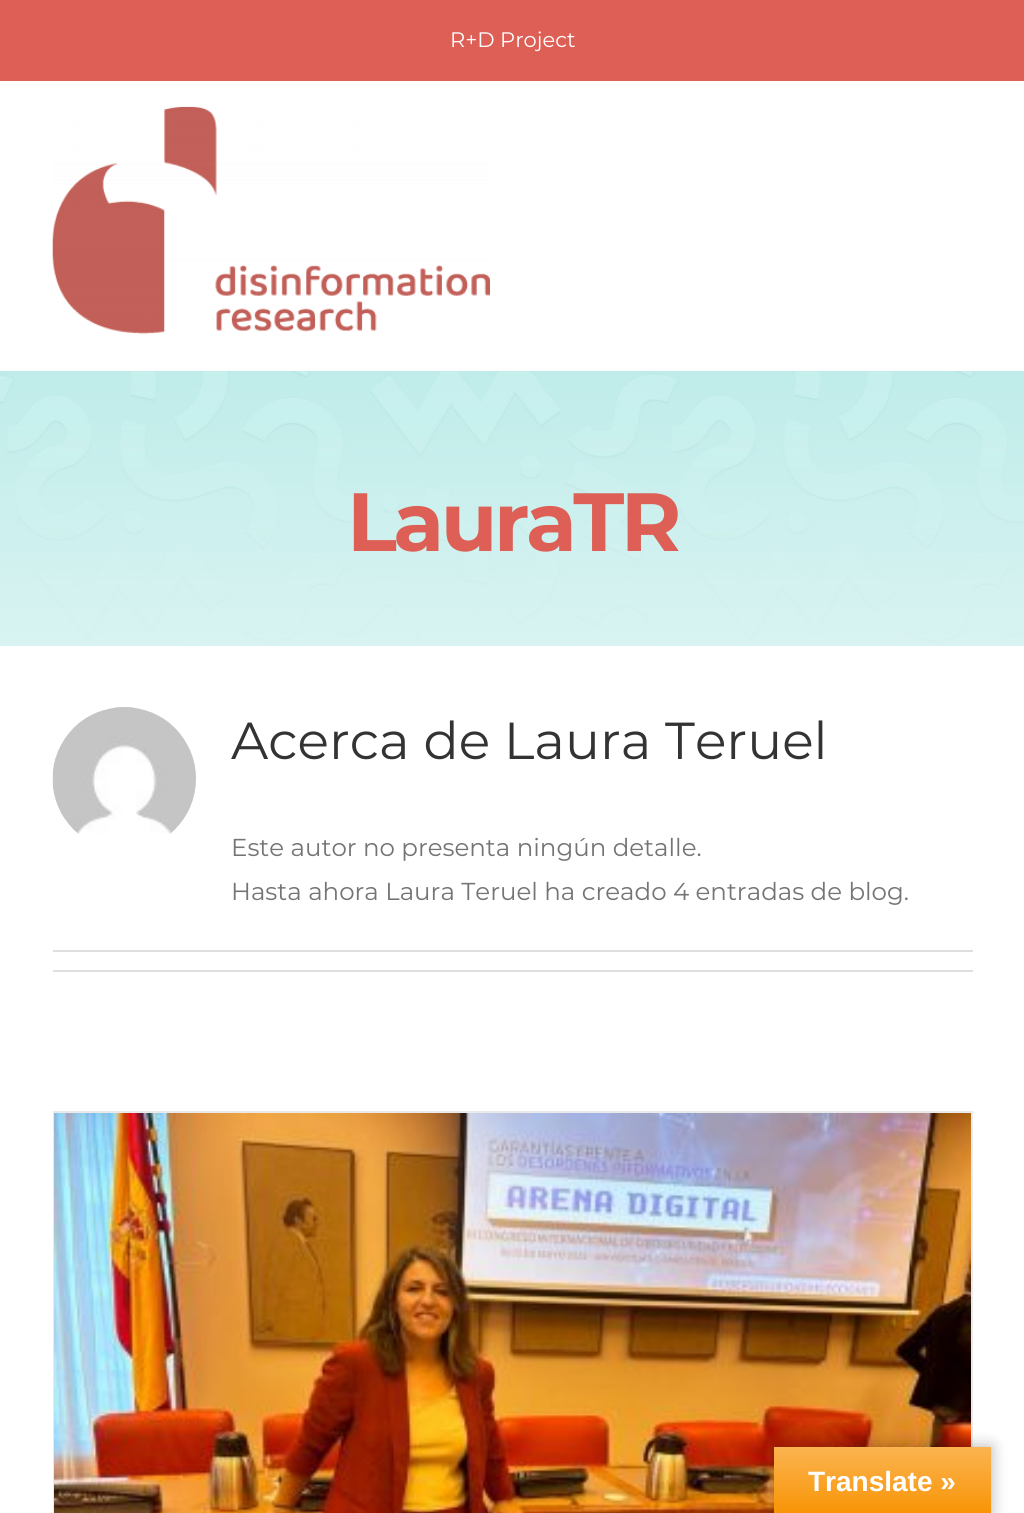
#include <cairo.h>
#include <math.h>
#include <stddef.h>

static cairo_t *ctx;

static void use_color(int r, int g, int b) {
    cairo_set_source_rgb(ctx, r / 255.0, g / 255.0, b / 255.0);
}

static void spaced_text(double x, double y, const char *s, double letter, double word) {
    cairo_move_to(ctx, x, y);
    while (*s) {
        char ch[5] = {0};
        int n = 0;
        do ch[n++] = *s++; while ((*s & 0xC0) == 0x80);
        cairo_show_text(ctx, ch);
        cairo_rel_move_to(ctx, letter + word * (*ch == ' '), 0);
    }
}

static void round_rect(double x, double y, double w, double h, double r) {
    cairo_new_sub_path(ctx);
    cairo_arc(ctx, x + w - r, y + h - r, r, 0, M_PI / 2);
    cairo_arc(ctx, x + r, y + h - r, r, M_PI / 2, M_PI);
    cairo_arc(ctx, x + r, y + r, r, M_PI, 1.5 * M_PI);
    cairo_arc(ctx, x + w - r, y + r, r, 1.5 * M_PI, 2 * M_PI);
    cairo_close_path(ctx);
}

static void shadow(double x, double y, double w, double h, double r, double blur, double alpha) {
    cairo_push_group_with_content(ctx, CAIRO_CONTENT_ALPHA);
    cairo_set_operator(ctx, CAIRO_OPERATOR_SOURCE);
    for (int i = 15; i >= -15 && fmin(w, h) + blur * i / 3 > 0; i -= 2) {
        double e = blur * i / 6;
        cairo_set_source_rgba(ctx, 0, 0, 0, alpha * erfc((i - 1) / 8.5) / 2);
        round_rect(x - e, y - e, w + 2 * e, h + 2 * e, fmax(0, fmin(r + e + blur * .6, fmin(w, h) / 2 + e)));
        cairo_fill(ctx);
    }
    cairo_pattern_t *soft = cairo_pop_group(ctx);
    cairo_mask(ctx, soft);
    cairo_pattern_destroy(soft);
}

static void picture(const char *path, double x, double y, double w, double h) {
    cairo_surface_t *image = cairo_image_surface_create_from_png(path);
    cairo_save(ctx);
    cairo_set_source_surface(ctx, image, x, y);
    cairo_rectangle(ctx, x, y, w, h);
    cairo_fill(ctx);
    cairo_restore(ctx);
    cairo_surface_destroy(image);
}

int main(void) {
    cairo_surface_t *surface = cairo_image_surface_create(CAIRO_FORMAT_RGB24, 1024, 1513);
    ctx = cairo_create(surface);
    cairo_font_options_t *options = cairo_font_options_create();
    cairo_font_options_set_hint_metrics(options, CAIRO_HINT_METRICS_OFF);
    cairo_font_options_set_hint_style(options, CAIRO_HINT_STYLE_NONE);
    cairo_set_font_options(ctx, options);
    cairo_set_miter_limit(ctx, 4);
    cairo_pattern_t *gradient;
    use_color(255, 255, 255);
    cairo_paint(ctx);
    use_color(221, 95, 86);
    cairo_rectangle(ctx, 0, 0, 1024, 81);
    cairo_fill(ctx);
    cairo_select_font_face(ctx, "Montserrat", CAIRO_FONT_SLANT_NORMAL, CAIRO_FONT_WEIGHT_NORMAL);
    cairo_set_font_size(ctx, 21);
    use_color(255, 255, 255);
    cairo_move_to(ctx, 450, 47);
    cairo_show_text(ctx, "R+D Project");
    picture("img1.png", 52, 106, 438, 228);
    picture("img2.png", 0, 371, 1024, 275);
    cairo_select_font_face(ctx, "Montserrat", CAIRO_FONT_SLANT_NORMAL, CAIRO_FONT_WEIGHT_BOLD);
    cairo_set_font_size(ctx, 82.5);
    use_color(221, 95, 86);
    spaced_text(347, 551, "LauraTR", -3.5, 0);
    picture("img3.png", 52, 707, 144, 127);
    cairo_select_font_face(ctx, "Montserrat", CAIRO_FONT_SLANT_NORMAL, CAIRO_FONT_WEIGHT_NORMAL);
    cairo_set_font_size(ctx, 52);
    use_color(51, 51, 51);
    cairo_move_to(ctx, 231, 759);
    cairo_show_text(ctx, "Acerca de Laura Teruel");
    cairo_set_font_size(ctx, 24.5);
    use_color(116, 116, 116);
    cairo_move_to(ctx, 231, 856);
    cairo_show_text(ctx, "Este autor no presenta ningún detalle.");
    cairo_move_to(ctx, 231, 900);
    cairo_show_text(ctx, "Hasta ahora Laura Teruel ha creado 4 entradas de blog.");
    use_color(224, 222, 222);
    cairo_rectangle(ctx, 53, 950, 920, 2);
    cairo_fill(ctx);
    cairo_rectangle(ctx, 53, 970, 920, 2);
    cairo_fill(ctx);
    use_color(235, 234, 234);
    cairo_rectangle(ctx, 53, 1111, 920, 2);
    cairo_fill(ctx);
    cairo_rectangle(ctx, 971, 1111, 2, 336);
    cairo_fill(ctx);
    cairo_rectangle(ctx, 53, 1111, 2, 402);
    cairo_fill(ctx);
    picture("img4.png", 54, 1113, 917, 400);
    use_color(0, 0, 0);
    shadow(774, 1447, 217, 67, 0, 8, 0.3);
    gradient = cairo_pattern_create_linear(882, 1447, 882, 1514);
    cairo_pattern_add_color_stop_rgba(gradient, 0, 0.984, 0.706, 0.314, 1);
    cairo_pattern_add_color_stop_rgba(gradient, 1, 0.973, 0.58, 0.024, 1);
    cairo_set_source(ctx, gradient);
    cairo_pattern_destroy(gradient);
    cairo_rectangle(ctx, 774, 1447, 217, 66);
    cairo_fill(ctx);
    cairo_select_font_face(ctx, "Liberation Sans", CAIRO_FONT_SLANT_NORMAL, CAIRO_FONT_WEIGHT_BOLD);
    cairo_set_font_size(ctx, 28);
    use_color(255, 255, 255);
    cairo_move_to(ctx, 808, 1491);
    cairo_show_text(ctx, "Translate »");
    cairo_surface_write_to_png(surface, "result.png");
    cairo_font_options_destroy(options);
    cairo_destroy(ctx);
    cairo_surface_destroy(surface);
    return 0;
}
